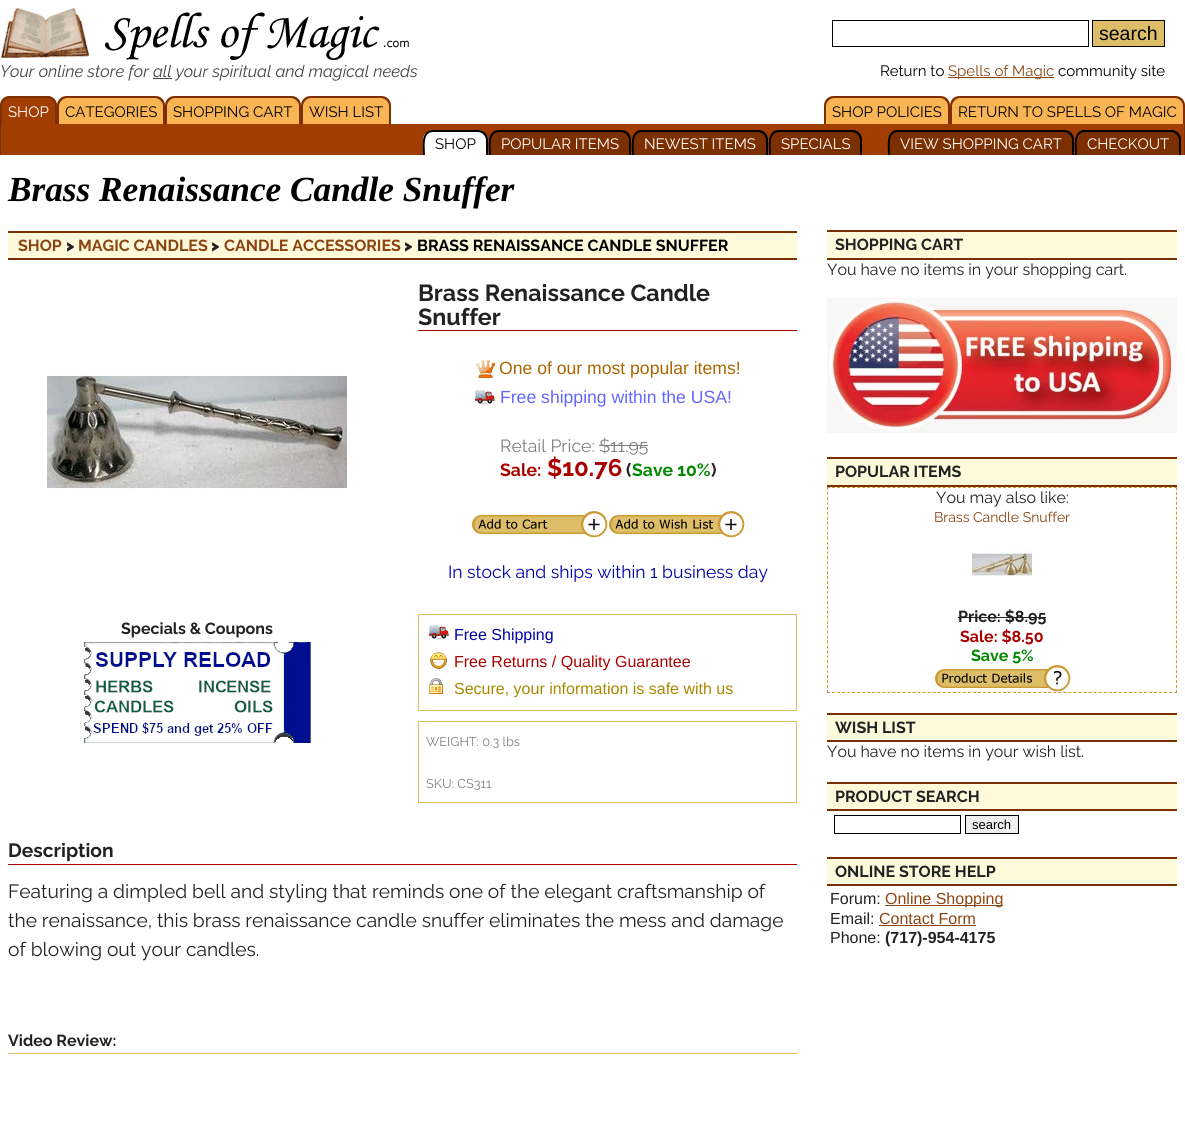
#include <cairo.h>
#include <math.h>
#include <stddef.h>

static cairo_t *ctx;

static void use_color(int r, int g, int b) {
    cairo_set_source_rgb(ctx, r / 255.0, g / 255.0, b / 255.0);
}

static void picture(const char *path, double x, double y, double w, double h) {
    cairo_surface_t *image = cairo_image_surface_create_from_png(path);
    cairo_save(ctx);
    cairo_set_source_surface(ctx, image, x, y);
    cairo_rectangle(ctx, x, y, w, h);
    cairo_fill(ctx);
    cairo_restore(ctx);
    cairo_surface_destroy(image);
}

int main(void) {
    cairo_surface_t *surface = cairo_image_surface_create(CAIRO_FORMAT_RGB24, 1185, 1121);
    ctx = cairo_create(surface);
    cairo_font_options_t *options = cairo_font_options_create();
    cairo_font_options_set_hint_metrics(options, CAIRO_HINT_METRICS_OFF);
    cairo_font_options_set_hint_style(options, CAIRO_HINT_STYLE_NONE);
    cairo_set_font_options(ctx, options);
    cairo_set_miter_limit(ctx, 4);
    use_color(255, 255, 255);
    cairo_paint(ctx);
    picture("img1.png", 1, 8, 408, 52);
    cairo_select_font_face(ctx, "Raleway", CAIRO_FONT_SLANT_ITALIC, CAIRO_FONT_WEIGHT_NORMAL);
    cairo_set_font_size(ctx, 16.5);
    use_color(68, 68, 68);
    cairo_move_to(ctx, 0, 77);
    cairo_show_text(ctx, "Your online store for all your spiritual and magical needs");
    cairo_rectangle(ctx, 153, 78, 19, 1);
    cairo_fill(ctx);
    cairo_rectangle(ctx, 832.5, 20.5, 256, 26);
    use_color(0, 0, 0);
    cairo_set_line_width(ctx, 1);
    cairo_stroke(ctx);
    use_color(222, 189, 105);
    cairo_rectangle(ctx, 1092.5, 20.5, 72, 26);
    cairo_fill_preserve(ctx);
    use_color(0, 0, 0);
    cairo_stroke(ctx);
    cairo_select_font_face(ctx, "Liberation Sans", CAIRO_FONT_SLANT_NORMAL, CAIRO_FONT_WEIGHT_NORMAL);
    cairo_set_font_size(ctx, 19.5);
    cairo_move_to(ctx, 1099, 40);
    cairo_show_text(ctx, "search");
    cairo_select_font_face(ctx, "Raleway", CAIRO_FONT_SLANT_NORMAL, CAIRO_FONT_WEIGHT_NORMAL);
    cairo_set_font_size(ctx, 15);
    cairo_move_to(ctx, 880, 76);
    cairo_show_text(ctx, "Return to");
    use_color(139, 69, 19);
    cairo_rectangle(ctx, 948, 77, 106, 1);
    cairo_fill(ctx);
    cairo_move_to(ctx, 948, 76);
    cairo_show_text(ctx, "Spells of Magic");
    use_color(0, 0, 0);
    cairo_move_to(ctx, 1058, 76);
    cairo_show_text(ctx, "community site");
    use_color(162, 61, 1);
    cairo_new_path(ctx);
    cairo_move_to(ctx, 10, 96);
    cairo_line_to(ctx, 47, 96);
    cairo_curve_to(ctx, 52.5, 96, 57, 100.5, 57, 106);
    cairo_line_to(ctx, 57, 124);
    cairo_line_to(ctx, 0, 124);
    cairo_line_to(ctx, 0, 106);
    cairo_curve_to(ctx, 0, 100.5, 4.5, 96, 10, 96);
    cairo_close_path(ctx);
    cairo_fill(ctx);
    use_color(124, 47, 1);
    cairo_set_fill_rule(ctx, CAIRO_FILL_RULE_EVEN_ODD);
    cairo_new_path(ctx);
    cairo_move_to(ctx, 10, 96);
    cairo_line_to(ctx, 47, 96);
    cairo_curve_to(ctx, 53, 96, 57, 100, 57, 106);
    cairo_line_to(ctx, 57, 124);
    cairo_line_to(ctx, 0, 124);
    cairo_line_to(ctx, 0, 106);
    cairo_curve_to(ctx, 0, 100, 4, 96, 10, 96);
    cairo_close_path(ctx);
    cairo_move_to(ctx, 10, 98);
    cairo_line_to(ctx, 47, 98);
    cairo_curve_to(ctx, 51, 98, 55, 102, 55, 106);
    cairo_line_to(ctx, 55, 124);
    cairo_line_to(ctx, 2, 124);
    cairo_line_to(ctx, 2, 106);
    cairo_curve_to(ctx, 2, 102, 6, 98, 10, 98);
    cairo_close_path(ctx);
    cairo_fill(ctx);
    use_color(255, 255, 255);
    cairo_move_to(ctx, 8, 117);
    cairo_show_text(ctx, "SHOP");
    use_color(249, 181, 84);
    cairo_new_path(ctx);
    cairo_move_to(ctx, 67, 96);
    cairo_line_to(ctx, 155, 96);
    cairo_curve_to(ctx, 160.5, 96, 165, 100.5, 165, 106);
    cairo_line_to(ctx, 165, 124);
    cairo_line_to(ctx, 57, 124);
    cairo_line_to(ctx, 57, 106);
    cairo_curve_to(ctx, 57, 100.5, 61.5, 96, 67, 96);
    cairo_close_path(ctx);
    cairo_fill(ctx);
    use_color(124, 47, 1);
    cairo_new_path(ctx);
    cairo_move_to(ctx, 67, 96);
    cairo_line_to(ctx, 155, 96);
    cairo_curve_to(ctx, 161, 96, 165, 100, 165, 106);
    cairo_line_to(ctx, 165, 124);
    cairo_line_to(ctx, 57, 124);
    cairo_line_to(ctx, 57, 106);
    cairo_curve_to(ctx, 57, 100, 61, 96, 67, 96);
    cairo_close_path(ctx);
    cairo_move_to(ctx, 67, 98);
    cairo_line_to(ctx, 155, 98);
    cairo_curve_to(ctx, 159, 98, 163, 102, 163, 106);
    cairo_line_to(ctx, 163, 124);
    cairo_line_to(ctx, 59, 124);
    cairo_line_to(ctx, 59, 106);
    cairo_curve_to(ctx, 59, 102, 63, 98, 67, 98);
    cairo_close_path(ctx);
    cairo_fill(ctx);
    use_color(0, 0, 0);
    cairo_move_to(ctx, 65, 117);
    cairo_show_text(ctx, "CATEGORIES");
    use_color(249, 181, 84);
    cairo_new_path(ctx);
    cairo_move_to(ctx, 175, 96);
    cairo_line_to(ctx, 291, 96);
    cairo_curve_to(ctx, 296.5, 96, 301, 100.5, 301, 106);
    cairo_line_to(ctx, 301, 124);
    cairo_line_to(ctx, 165, 124);
    cairo_line_to(ctx, 165, 106);
    cairo_curve_to(ctx, 165, 100.5, 169.5, 96, 175, 96);
    cairo_close_path(ctx);
    cairo_fill(ctx);
    use_color(124, 47, 1);
    cairo_new_path(ctx);
    cairo_move_to(ctx, 175, 96);
    cairo_line_to(ctx, 291, 96);
    cairo_curve_to(ctx, 297, 96, 301, 100, 301, 106);
    cairo_line_to(ctx, 301, 124);
    cairo_line_to(ctx, 165, 124);
    cairo_line_to(ctx, 165, 106);
    cairo_curve_to(ctx, 165, 100, 169, 96, 175, 96);
    cairo_close_path(ctx);
    cairo_move_to(ctx, 175, 98);
    cairo_line_to(ctx, 291, 98);
    cairo_curve_to(ctx, 295, 98, 299, 102, 299, 106);
    cairo_line_to(ctx, 299, 124);
    cairo_line_to(ctx, 167, 124);
    cairo_line_to(ctx, 167, 106);
    cairo_curve_to(ctx, 167, 102, 171, 98, 175, 98);
    cairo_close_path(ctx);
    cairo_fill(ctx);
    use_color(0, 0, 0);
    cairo_move_to(ctx, 173, 117);
    cairo_show_text(ctx, "SHOPPING CART");
    use_color(249, 181, 84);
    cairo_new_path(ctx);
    cairo_move_to(ctx, 311, 96);
    cairo_line_to(ctx, 381, 96);
    cairo_curve_to(ctx, 386.5, 96, 391, 100.5, 391, 106);
    cairo_line_to(ctx, 391, 124);
    cairo_line_to(ctx, 301, 124);
    cairo_line_to(ctx, 301, 106);
    cairo_curve_to(ctx, 301, 100.5, 305.5, 96, 311, 96);
    cairo_close_path(ctx);
    cairo_fill(ctx);
    use_color(124, 47, 1);
    cairo_new_path(ctx);
    cairo_move_to(ctx, 311, 96);
    cairo_line_to(ctx, 381, 96);
    cairo_curve_to(ctx, 387, 96, 391, 100, 391, 106);
    cairo_line_to(ctx, 391, 124);
    cairo_line_to(ctx, 301, 124);
    cairo_line_to(ctx, 301, 106);
    cairo_curve_to(ctx, 301, 100, 305, 96, 311, 96);
    cairo_close_path(ctx);
    cairo_move_to(ctx, 311, 98);
    cairo_line_to(ctx, 381, 98);
    cairo_curve_to(ctx, 385, 98, 389, 102, 389, 106);
    cairo_line_to(ctx, 389, 124);
    cairo_line_to(ctx, 303, 124);
    cairo_line_to(ctx, 303, 106);
    cairo_curve_to(ctx, 303, 102, 307, 98, 311, 98);
    cairo_close_path(ctx);
    cairo_fill(ctx);
    use_color(0, 0, 0);
    cairo_move_to(ctx, 309, 117);
    cairo_show_text(ctx, "WISH LIST");
    use_color(249, 181, 84);
    cairo_new_path(ctx);
    cairo_move_to(ctx, 834, 96);
    cairo_line_to(ctx, 940, 96);
    cairo_curve_to(ctx, 945.5, 96, 950, 100.5, 950, 106);
    cairo_line_to(ctx, 950, 124);
    cairo_line_to(ctx, 824, 124);
    cairo_line_to(ctx, 824, 106);
    cairo_curve_to(ctx, 824, 100.5, 828.5, 96, 834, 96);
    cairo_close_path(ctx);
    cairo_fill(ctx);
    use_color(124, 47, 1);
    cairo_new_path(ctx);
    cairo_move_to(ctx, 834, 96);
    cairo_line_to(ctx, 940, 96);
    cairo_curve_to(ctx, 946, 96, 950, 100, 950, 106);
    cairo_line_to(ctx, 950, 124);
    cairo_line_to(ctx, 824, 124);
    cairo_line_to(ctx, 824, 106);
    cairo_curve_to(ctx, 824, 100, 828, 96, 834, 96);
    cairo_close_path(ctx);
    cairo_move_to(ctx, 834, 98);
    cairo_line_to(ctx, 940, 98);
    cairo_curve_to(ctx, 944, 98, 948, 102, 948, 106);
    cairo_line_to(ctx, 948, 124);
    cairo_line_to(ctx, 826, 124);
    cairo_line_to(ctx, 826, 106);
    cairo_curve_to(ctx, 826, 102, 830, 98, 834, 98);
    cairo_close_path(ctx);
    cairo_fill(ctx);
    use_color(0, 0, 0);
    cairo_move_to(ctx, 832, 117);
    cairo_show_text(ctx, "SHOP POLICIES");
    use_color(249, 181, 84);
    cairo_new_path(ctx);
    cairo_move_to(ctx, 960, 96);
    cairo_line_to(ctx, 1175, 96);
    cairo_curve_to(ctx, 1180.5, 96, 1185, 100.5, 1185, 106);
    cairo_line_to(ctx, 1185, 124);
    cairo_line_to(ctx, 950, 124);
    cairo_line_to(ctx, 950, 106);
    cairo_curve_to(ctx, 950, 100.5, 954.5, 96, 960, 96);
    cairo_close_path(ctx);
    cairo_fill(ctx);
    use_color(124, 47, 1);
    cairo_new_path(ctx);
    cairo_move_to(ctx, 960, 96);
    cairo_line_to(ctx, 1175, 96);
    cairo_curve_to(ctx, 1181, 96, 1185, 100, 1185, 106);
    cairo_line_to(ctx, 1185, 124);
    cairo_line_to(ctx, 950, 124);
    cairo_line_to(ctx, 950, 106);
    cairo_curve_to(ctx, 950, 100, 954, 96, 960, 96);
    cairo_close_path(ctx);
    cairo_move_to(ctx, 960, 98);
    cairo_line_to(ctx, 1175, 98);
    cairo_curve_to(ctx, 1179, 98, 1183, 102, 1183, 106);
    cairo_line_to(ctx, 1183, 124);
    cairo_line_to(ctx, 952, 124);
    cairo_line_to(ctx, 952, 106);
    cairo_curve_to(ctx, 952, 102, 956, 98, 960, 98);
    cairo_close_path(ctx);
    cairo_fill(ctx);
    use_color(0, 0, 0);
    cairo_move_to(ctx, 958, 117);
    cairo_show_text(ctx, "RETURN TO SPELLS OF MAGIC");
    use_color(162, 61, 1);
    cairo_rectangle(ctx, 1, 124, 1183, 31);
    cairo_fill(ctx);
    use_color(124, 47, 1);
    cairo_rectangle(ctx, 1184, 124, 1, 31);
    cairo_fill(ctx);
    cairo_rectangle(ctx, 0, 124, 1, 31);
    cairo_fill(ctx);
    use_color(255, 255, 255);
    cairo_new_path(ctx);
    cairo_move_to(ctx, 433, 130);
    cairo_line_to(ctx, 478, 130);
    cairo_curve_to(ctx, 483.5, 130, 488, 134.5, 488, 140);
    cairo_line_to(ctx, 488, 155);
    cairo_line_to(ctx, 423, 155);
    cairo_line_to(ctx, 423, 140);
    cairo_curve_to(ctx, 423, 134.5, 427.5, 130, 433, 130);
    cairo_close_path(ctx);
    cairo_fill(ctx);
    use_color(0, 0, 0);
    cairo_new_path(ctx);
    cairo_move_to(ctx, 433, 130);
    cairo_line_to(ctx, 478, 130);
    cairo_curve_to(ctx, 484, 130, 488, 134, 488, 140);
    cairo_line_to(ctx, 488, 155);
    cairo_line_to(ctx, 423, 155);
    cairo_curve_to(ctx, 423, 147, 420, 130, 433, 130);
    cairo_close_path(ctx);
    cairo_move_to(ctx, 433, 132);
    cairo_line_to(ctx, 478, 132);
    cairo_curve_to(ctx, 482, 132, 486, 136, 486, 140);
    cairo_line_to(ctx, 486, 155);
    cairo_line_to(ctx, 425, 155);
    cairo_curve_to(ctx, 425, 148, 422, 132, 433, 132);
    cairo_close_path(ctx);
    cairo_fill(ctx);
    cairo_move_to(ctx, 435, 149);
    cairo_show_text(ctx, "SHOP");
    use_color(124, 47, 1);
    cairo_new_path(ctx);
    cairo_move_to(ctx, 499, 130);
    cairo_line_to(ctx, 621, 130);
    cairo_curve_to(ctx, 626.5, 130, 631, 134.5, 631, 140);
    cairo_line_to(ctx, 631, 155);
    cairo_line_to(ctx, 489, 155);
    cairo_line_to(ctx, 489, 140);
    cairo_curve_to(ctx, 489, 134.5, 493.5, 130, 499, 130);
    cairo_close_path(ctx);
    cairo_fill(ctx);
    use_color(0, 0, 0);
    cairo_new_path(ctx);
    cairo_move_to(ctx, 499, 130);
    cairo_line_to(ctx, 621, 130);
    cairo_curve_to(ctx, 627, 130, 631, 134, 631, 140);
    cairo_line_to(ctx, 631, 155);
    cairo_line_to(ctx, 489, 155);
    cairo_curve_to(ctx, 489, 147, 486, 130, 499, 130);
    cairo_close_path(ctx);
    cairo_move_to(ctx, 499, 132);
    cairo_line_to(ctx, 621, 132);
    cairo_curve_to(ctx, 625, 132, 629, 136, 629, 140);
    cairo_line_to(ctx, 629, 155);
    cairo_line_to(ctx, 491, 155);
    cairo_curve_to(ctx, 491, 148, 488, 132, 499, 132);
    cairo_close_path(ctx);
    cairo_fill(ctx);
    use_color(255, 255, 255);
    cairo_move_to(ctx, 501, 149);
    cairo_show_text(ctx, "POPULAR ITEMS");
    use_color(124, 47, 1);
    cairo_new_path(ctx);
    cairo_move_to(ctx, 642, 130);
    cairo_line_to(ctx, 758, 130);
    cairo_curve_to(ctx, 763.5, 130, 768, 134.5, 768, 140);
    cairo_line_to(ctx, 768, 155);
    cairo_line_to(ctx, 632, 155);
    cairo_line_to(ctx, 632, 140);
    cairo_curve_to(ctx, 632, 134.5, 636.5, 130, 642, 130);
    cairo_close_path(ctx);
    cairo_fill(ctx);
    use_color(0, 0, 0);
    cairo_new_path(ctx);
    cairo_move_to(ctx, 642, 130);
    cairo_line_to(ctx, 758, 130);
    cairo_curve_to(ctx, 764, 130, 768, 134, 768, 140);
    cairo_line_to(ctx, 768, 155);
    cairo_line_to(ctx, 632, 155);
    cairo_curve_to(ctx, 632, 147, 629, 130, 642, 130);
    cairo_close_path(ctx);
    cairo_move_to(ctx, 642, 132);
    cairo_line_to(ctx, 758, 132);
    cairo_curve_to(ctx, 762, 132, 766, 136, 766, 140);
    cairo_line_to(ctx, 766, 155);
    cairo_line_to(ctx, 634, 155);
    cairo_curve_to(ctx, 634, 148, 631, 132, 642, 132);
    cairo_close_path(ctx);
    cairo_fill(ctx);
    use_color(255, 255, 255);
    cairo_move_to(ctx, 644, 149);
    cairo_show_text(ctx, "NEWEST ITEMS");
    use_color(124, 47, 1);
    cairo_new_path(ctx);
    cairo_move_to(ctx, 779, 130);
    cairo_line_to(ctx, 852, 130);
    cairo_curve_to(ctx, 857.5, 130, 862, 134.5, 862, 140);
    cairo_line_to(ctx, 862, 155);
    cairo_line_to(ctx, 769, 155);
    cairo_line_to(ctx, 769, 140);
    cairo_curve_to(ctx, 769, 134.5, 773.5, 130, 779, 130);
    cairo_close_path(ctx);
    cairo_fill(ctx);
    use_color(0, 0, 0);
    cairo_new_path(ctx);
    cairo_move_to(ctx, 779, 130);
    cairo_line_to(ctx, 852, 130);
    cairo_curve_to(ctx, 858, 130, 862, 134, 862, 140);
    cairo_line_to(ctx, 862, 155);
    cairo_line_to(ctx, 769, 155);
    cairo_curve_to(ctx, 769, 147, 766, 130, 779, 130);
    cairo_close_path(ctx);
    cairo_move_to(ctx, 779, 132);
    cairo_line_to(ctx, 852, 132);
    cairo_curve_to(ctx, 856, 132, 860, 136, 860, 140);
    cairo_line_to(ctx, 860, 155);
    cairo_line_to(ctx, 771, 155);
    cairo_curve_to(ctx, 771, 148, 768, 132, 779, 132);
    cairo_close_path(ctx);
    cairo_fill(ctx);
    use_color(255, 255, 255);
    cairo_move_to(ctx, 781, 149);
    cairo_show_text(ctx, "SPECIALS");
    use_color(124, 47, 1);
    cairo_new_path(ctx);
    cairo_move_to(ctx, 898, 130);
    cairo_line_to(ctx, 1064, 130);
    cairo_curve_to(ctx, 1069.5, 130, 1074, 134.5, 1074, 140);
    cairo_line_to(ctx, 1074, 155);
    cairo_line_to(ctx, 888, 155);
    cairo_line_to(ctx, 888, 140);
    cairo_curve_to(ctx, 888, 134.5, 892.5, 130, 898, 130);
    cairo_close_path(ctx);
    cairo_fill(ctx);
    use_color(0, 0, 0);
    cairo_new_path(ctx);
    cairo_move_to(ctx, 898, 130);
    cairo_line_to(ctx, 1064, 130);
    cairo_curve_to(ctx, 1070, 130, 1074, 134, 1074, 140);
    cairo_line_to(ctx, 1074, 155);
    cairo_line_to(ctx, 888, 155);
    cairo_curve_to(ctx, 888, 147, 885, 130, 898, 130);
    cairo_close_path(ctx);
    cairo_move_to(ctx, 898, 132);
    cairo_line_to(ctx, 1064, 132);
    cairo_curve_to(ctx, 1068, 132, 1072, 136, 1072, 140);
    cairo_line_to(ctx, 1072, 155);
    cairo_line_to(ctx, 890, 155);
    cairo_curve_to(ctx, 890, 148, 887, 132, 898, 132);
    cairo_close_path(ctx);
    cairo_fill(ctx);
    use_color(255, 255, 255);
    cairo_move_to(ctx, 900, 149);
    cairo_show_text(ctx, "VIEW SHOPPING CART");
    use_color(124, 47, 1);
    cairo_new_path(ctx);
    cairo_move_to(ctx, 1085, 130);
    cairo_line_to(ctx, 1171, 130);
    cairo_curve_to(ctx, 1176.5, 130, 1181, 134.5, 1181, 140);
    cairo_line_to(ctx, 1181, 155);
    cairo_line_to(ctx, 1075, 155);
    cairo_line_to(ctx, 1075, 140);
    cairo_curve_to(ctx, 1075, 134.5, 1079.5, 130, 1085, 130);
    cairo_close_path(ctx);
    cairo_fill(ctx);
    use_color(0, 0, 0);
    cairo_new_path(ctx);
    cairo_move_to(ctx, 1085, 130);
    cairo_line_to(ctx, 1171, 130);
    cairo_curve_to(ctx, 1177, 130, 1181, 134, 1181, 140);
    cairo_line_to(ctx, 1181, 155);
    cairo_line_to(ctx, 1075, 155);
    cairo_curve_to(ctx, 1075, 147, 1072, 130, 1085, 130);
    cairo_close_path(ctx);
    cairo_move_to(ctx, 1085, 132);
    cairo_line_to(ctx, 1171, 132);
    cairo_curve_to(ctx, 1175, 132, 1179, 136, 1179, 140);
    cairo_line_to(ctx, 1179, 155);
    cairo_line_to(ctx, 1077, 155);
    cairo_curve_to(ctx, 1077, 148, 1074, 132, 1085, 132);
    cairo_close_path(ctx);
    cairo_fill(ctx);
    use_color(255, 255, 255);
    cairo_move_to(ctx, 1087, 149);
    cairo_show_text(ctx, "CHECKOUT");
    cairo_select_font_face(ctx, "Liberation Serif", CAIRO_FONT_SLANT_ITALIC, CAIRO_FONT_WEIGHT_BOLD);
    cairo_set_font_size(ctx, 35.25);
    use_color(0, 0, 0);
    cairo_move_to(ctx, 8, 201);
    cairo_show_text(ctx, "Brass Renaissance Candle Snuffer");
    use_color(255, 249, 219);
    cairo_rectangle(ctx, 8, 233, 789, 25);
    cairo_fill(ctx);
    use_color(124, 47, 1);
    cairo_rectangle(ctx, 8, 231, 789, 2);
    cairo_fill(ctx);
    cairo_rectangle(ctx, 8, 258, 789, 2);
    cairo_fill(ctx);
    cairo_select_font_face(ctx, "Raleway", CAIRO_FONT_SLANT_NORMAL, CAIRO_FONT_WEIGHT_BOLD);
    cairo_set_font_size(ctx, 16);
    use_color(139, 69, 19);
    cairo_move_to(ctx, 18, 251);
    cairo_show_text(ctx, "SHOP");
    cairo_select_font_face(ctx, "Raleway Black", CAIRO_FONT_SLANT_NORMAL, CAIRO_FONT_WEIGHT_NORMAL);
    use_color(34, 34, 34);
    cairo_move_to(ctx, 66, 251);
    cairo_show_text(ctx, ">");
    cairo_select_font_face(ctx, "Raleway", CAIRO_FONT_SLANT_NORMAL, CAIRO_FONT_WEIGHT_BOLD);
    use_color(139, 69, 19);
    cairo_move_to(ctx, 78, 251);
    cairo_show_text(ctx, "MAGIC CANDLES");
    cairo_select_font_face(ctx, "Raleway Black", CAIRO_FONT_SLANT_NORMAL, CAIRO_FONT_WEIGHT_NORMAL);
    use_color(34, 34, 34);
    cairo_move_to(ctx, 211, 251);
    cairo_show_text(ctx, ">");
    cairo_select_font_face(ctx, "Raleway", CAIRO_FONT_SLANT_NORMAL, CAIRO_FONT_WEIGHT_BOLD);
    use_color(139, 69, 19);
    cairo_move_to(ctx, 224, 251);
    cairo_show_text(ctx, "CANDLE ACCESSORIES");
    cairo_select_font_face(ctx, "Raleway Black", CAIRO_FONT_SLANT_NORMAL, CAIRO_FONT_WEIGHT_NORMAL);
    use_color(34, 34, 34);
    cairo_move_to(ctx, 404, 251);
    cairo_show_text(ctx, ">");
    cairo_select_font_face(ctx, "Raleway", CAIRO_FONT_SLANT_NORMAL, CAIRO_FONT_WEIGHT_BOLD);
    use_color(0, 0, 0);
    cairo_move_to(ctx, 417, 251);
    cairo_show_text(ctx, "BRASS RENAISSANCE CANDLE SNUFFER");
    use_color(170, 0, 0);
    cairo_rectangle(ctx, 418, 330, 379, 1);
    cairo_fill(ctx);
    cairo_set_font_size(ctx, 23.25);
    use_color(34, 34, 34);
    cairo_move_to(ctx, 418, 301);
    cairo_show_text(ctx, "Brass Renaissance Candle");
    cairo_move_to(ctx, 418, 325);
    cairo_show_text(ctx, "Snuffer");
    picture("img2.png", 476, 360, 19, 18);
    cairo_select_font_face(ctx, "Liberation Sans", CAIRO_FONT_SLANT_NORMAL, CAIRO_FONT_WEIGHT_NORMAL);
    cairo_set_font_size(ctx, 17.6);
    use_color(170, 102, 0);
    cairo_move_to(ctx, 499, 374);
    cairo_show_text(ctx, "One of our most popular items!");
    picture("img3.png", 475, 390, 21, 15);
    use_color(102, 102, 255);
    cairo_move_to(ctx, 500, 403);
    cairo_show_text(ctx, "Free shipping within the USA!");
    cairo_select_font_face(ctx, "Raleway", CAIRO_FONT_SLANT_NORMAL, CAIRO_FONT_WEIGHT_NORMAL);
    use_color(128, 128, 128);
    cairo_move_to(ctx, 500, 452);
    cairo_show_text(ctx, "Retail Price: $11.95");
    cairo_rectangle(ctx, 599, 445, 49, 1);
    cairo_fill(ctx);
    cairo_select_font_face(ctx, "Raleway", CAIRO_FONT_SLANT_NORMAL, CAIRO_FONT_WEIGHT_BOLD);
    use_color(170, 0, 0);
    cairo_move_to(ctx, 500, 476);
    cairo_show_text(ctx, "Sale:");
    cairo_set_font_size(ctx, 24);
    cairo_move_to(ctx, 547, 476);
    cairo_show_text(ctx, "$10.76");
    cairo_set_font_size(ctx, 17.6);
    use_color(34, 34, 34);
    cairo_move_to(ctx, 626, 476);
    cairo_show_text(ctx, "(");
    use_color(0, 136, 0);
    cairo_move_to(ctx, 632, 476);
    cairo_show_text(ctx, "Save 10%");
    use_color(34, 34, 34);
    cairo_move_to(ctx, 711, 476);
    cairo_show_text(ctx, ")");
    picture("img4.png", 472, 511, 136, 27);
    picture("img5.png", 609, 511, 136, 27);
    cairo_select_font_face(ctx, "Raleway", CAIRO_FONT_SLANT_NORMAL, CAIRO_FONT_WEIGHT_NORMAL);
    use_color(0, 0, 170);
    cairo_move_to(ctx, 448, 578);
    cairo_show_text(ctx, "In stock and ships within 1 business day");
    picture("img6.png", 47, 370, 300, 120);
    cairo_select_font_face(ctx, "Raleway", CAIRO_FONT_SLANT_NORMAL, CAIRO_FONT_WEIGHT_BOLD);
    cairo_set_font_size(ctx, 16);
    use_color(34, 34, 34);
    cairo_move_to(ctx, 121, 634);
    cairo_show_text(ctx, "Specials & Coupons");
    picture("img7.png", 84, 642, 227, 101);
    cairo_rectangle(ctx, 418.5, 614.5, 378, 96);
    use_color(222, 189, 105);
    cairo_stroke(ctx);
    picture("img3.png", 429, 625, 21, 15);
    cairo_select_font_face(ctx, "Liberation Sans", CAIRO_FONT_SLANT_NORMAL, CAIRO_FONT_WEIGHT_NORMAL);
    use_color(0, 0, 170);
    cairo_move_to(ctx, 454, 640);
    cairo_show_text(ctx, "Free Shipping");
    picture("img8.png", 430, 652, 17, 17);
    use_color(170, 0, 0);
    cairo_move_to(ctx, 454, 667);
    cairo_show_text(ctx, "Free Returns / Quality Guarantee");
    picture("img9.png", 429, 678, 14, 16);
    use_color(170, 136, 0);
    cairo_move_to(ctx, 454, 694);
    cairo_show_text(ctx, "Secure, your information is safe with us");
    cairo_rectangle(ctx, 418.5, 721.5, 378, 81);
    use_color(222, 189, 105);
    cairo_stroke(ctx);
    cairo_select_font_face(ctx, "Raleway", CAIRO_FONT_SLANT_NORMAL, CAIRO_FONT_WEIGHT_NORMAL);
    cairo_set_font_size(ctx, 12.75);
    use_color(128, 128, 128);
    cairo_move_to(ctx, 426, 746);
    cairo_show_text(ctx, "WEIGHT: 0.3 lbs");
    cairo_move_to(ctx, 426, 788);
    cairo_show_text(ctx, "SKU: CS311");
    use_color(170, 0, 0);
    cairo_rectangle(ctx, 8, 864, 789, 1);
    cairo_fill(ctx);
    cairo_select_font_face(ctx, "Raleway", CAIRO_FONT_SLANT_NORMAL, CAIRO_FONT_WEIGHT_BOLD);
    cairo_set_font_size(ctx, 19.2);
    use_color(34, 34, 34);
    cairo_move_to(ctx, 8, 857);
    cairo_show_text(ctx, "Description");
    cairo_select_font_face(ctx, "Raleway", CAIRO_FONT_SLANT_NORMAL, CAIRO_FONT_WEIGHT_NORMAL);
    cairo_move_to(ctx, 8, 898);
    cairo_show_text(ctx, "Featuring a dimpled bell and styling that reminds one of the elegant craftsmanship of");
    cairo_move_to(ctx, 8, 927);
    cairo_show_text(ctx, "the renaissance, this brass renaissance candle snuffer eliminates the mess and damage");
    cairo_move_to(ctx, 8, 956);
    cairo_show_text(ctx, "of blowing out your candles.");
    use_color(222, 189, 105);
    cairo_rectangle(ctx, 8, 1053, 789, 1);
    cairo_fill(ctx);
    cairo_select_font_face(ctx, "Raleway", CAIRO_FONT_SLANT_NORMAL, CAIRO_FONT_WEIGHT_BOLD);
    cairo_set_font_size(ctx, 16);
    use_color(34, 34, 34);
    cairo_move_to(ctx, 8, 1046);
    cairo_show_text(ctx, "Video Review:");
    use_color(255, 249, 219);
    cairo_rectangle(ctx, 827, 232, 350, 26);
    cairo_fill(ctx);
    use_color(124, 47, 1);
    cairo_rectangle(ctx, 827, 230, 350, 2);
    cairo_fill(ctx);
    cairo_rectangle(ctx, 827, 258, 350, 2);
    cairo_fill(ctx);
    use_color(34, 34, 34);
    cairo_move_to(ctx, 835, 250);
    cairo_show_text(ctx, "SHOPPING CART");
    cairo_select_font_face(ctx, "Raleway", CAIRO_FONT_SLANT_NORMAL, CAIRO_FONT_WEIGHT_NORMAL);
    cairo_move_to(ctx, 827, 275);
    cairo_show_text(ctx, "You have no items in your shopping cart.");
    picture("img10.png", 827, 298, 350, 135);
    use_color(255, 249, 219);
    cairo_rectangle(ctx, 827, 459, 350, 26);
    cairo_fill(ctx);
    use_color(124, 47, 1);
    cairo_rectangle(ctx, 827, 457, 350, 2);
    cairo_fill(ctx);
    cairo_rectangle(ctx, 827, 485, 350, 2);
    cairo_fill(ctx);
    cairo_select_font_face(ctx, "Raleway", CAIRO_FONT_SLANT_NORMAL, CAIRO_FONT_WEIGHT_BOLD);
    use_color(34, 34, 34);
    cairo_move_to(ctx, 835, 477);
    cairo_show_text(ctx, "POPULAR ITEMS");
    cairo_new_path(ctx);
    cairo_move_to(ctx, 827, 487.5);
    cairo_line_to(ctx, 1177, 487.5);
    use_color(204, 153, 51);
    cairo_set_dash(ctx, (double[]){3, 2.03}, 2, 0);
    cairo_stroke(ctx);
    cairo_new_path(ctx);
    cairo_move_to(ctx, 1176.5, 487);
    cairo_line_to(ctx, 1176.5, 693);
    cairo_set_dash(ctx, (double[]){3, 1.95}, 2, 0);
    cairo_stroke(ctx);
    cairo_new_path(ctx);
    cairo_move_to(ctx, 827, 692.5);
    cairo_line_to(ctx, 1177, 692.5);
    cairo_set_dash(ctx, (double[]){3, 2.03}, 2, 0);
    cairo_stroke(ctx);
    cairo_new_path(ctx);
    cairo_move_to(ctx, 827.5, 487);
    cairo_line_to(ctx, 827.5, 693);
    cairo_set_dash(ctx, (double[]){3, 1.95}, 2, 0);
    cairo_stroke(ctx);
    cairo_select_font_face(ctx, "Raleway", CAIRO_FONT_SLANT_NORMAL, CAIRO_FONT_WEIGHT_NORMAL);
    use_color(34, 34, 34);
    cairo_move_to(ctx, 936, 503);
    cairo_show_text(ctx, "You may also like:");
    cairo_set_font_size(ctx, 14);
    use_color(139, 69, 19);
    cairo_move_to(ctx, 934, 522);
    cairo_show_text(ctx, "Brass Candle Snuffer");
    picture("img11.png", 972, 551, 60, 25);
    cairo_select_font_face(ctx, "Raleway", CAIRO_FONT_SLANT_NORMAL, CAIRO_FONT_WEIGHT_BOLD);
    cairo_set_font_size(ctx, 16);
    use_color(34, 34, 34);
    cairo_move_to(ctx, 958, 622);
    cairo_show_text(ctx, "Price: $8.95");
    cairo_rectangle(ctx, 958, 617, 88, 1);
    cairo_fill(ctx);
    use_color(170, 0, 0);
    cairo_move_to(ctx, 960, 642);
    cairo_show_text(ctx, "Sale: $8.50");
    use_color(0, 136, 0);
    cairo_move_to(ctx, 971, 661);
    cairo_show_text(ctx, "Save 5%");
    picture("img12.png", 935, 665, 136, 27);
    use_color(255, 249, 219);
    cairo_rectangle(ctx, 827, 715, 350, 25);
    cairo_fill(ctx);
    use_color(124, 47, 1);
    cairo_rectangle(ctx, 827, 713, 350, 2);
    cairo_fill(ctx);
    cairo_rectangle(ctx, 827, 740, 350, 2);
    cairo_fill(ctx);
    use_color(34, 34, 34);
    cairo_move_to(ctx, 835, 733);
    cairo_show_text(ctx, "WISH LIST");
    cairo_select_font_face(ctx, "Raleway", CAIRO_FONT_SLANT_NORMAL, CAIRO_FONT_WEIGHT_NORMAL);
    cairo_move_to(ctx, 827, 757);
    cairo_show_text(ctx, "You have no items in your wish list.");
    use_color(255, 249, 219);
    cairo_rectangle(ctx, 827, 784, 350, 25);
    cairo_fill(ctx);
    use_color(124, 47, 1);
    cairo_rectangle(ctx, 827, 782, 350, 2);
    cairo_fill(ctx);
    cairo_rectangle(ctx, 827, 809, 350, 2);
    cairo_fill(ctx);
    cairo_select_font_face(ctx, "Raleway", CAIRO_FONT_SLANT_NORMAL, CAIRO_FONT_WEIGHT_BOLD);
    use_color(34, 34, 34);
    cairo_move_to(ctx, 835, 802);
    cairo_show_text(ctx, "PRODUCT SEARCH");
    cairo_rectangle(ctx, 834.5, 815.5, 126, 18);
    use_color(0, 0, 0);
    cairo_set_dash(ctx, NULL, 0, 0);
    cairo_stroke(ctx);
    use_color(239, 239, 239);
    cairo_rectangle(ctx, 965.5, 815.5, 53, 18);
    cairo_fill_preserve(ctx);
    use_color(0, 0, 0);
    cairo_stroke(ctx);
    cairo_select_font_face(ctx, "Liberation Sans", CAIRO_FONT_SLANT_NORMAL, CAIRO_FONT_WEIGHT_NORMAL);
    cairo_set_font_size(ctx, 13);
    cairo_move_to(ctx, 972, 829);
    cairo_show_text(ctx, "search");
    use_color(255, 249, 219);
    cairo_rectangle(ctx, 827, 859, 350, 25);
    cairo_fill(ctx);
    use_color(124, 47, 1);
    cairo_rectangle(ctx, 827, 857, 350, 2);
    cairo_fill(ctx);
    cairo_rectangle(ctx, 827, 884, 350, 2);
    cairo_fill(ctx);
    cairo_select_font_face(ctx, "Raleway", CAIRO_FONT_SLANT_NORMAL, CAIRO_FONT_WEIGHT_BOLD);
    cairo_set_font_size(ctx, 16);
    use_color(34, 34, 34);
    cairo_move_to(ctx, 835, 877);
    cairo_show_text(ctx, "ONLINE STORE HELP");
    cairo_select_font_face(ctx, "Liberation Sans", CAIRO_FONT_SLANT_NORMAL, CAIRO_FONT_WEIGHT_NORMAL);
    cairo_move_to(ctx, 830, 904);
    cairo_show_text(ctx, "Forum:");
    use_color(139, 69, 19);
    cairo_rectangle(ctx, 885, 905, 118, 1);
    cairo_fill(ctx);
    cairo_move_to(ctx, 885, 904);
    cairo_show_text(ctx, "Online Shopping");
    use_color(34, 34, 34);
    cairo_move_to(ctx, 830, 924);
    cairo_show_text(ctx, "Email:");
    use_color(139, 69, 19);
    cairo_move_to(ctx, 879, 924);
    cairo_show_text(ctx, "Contact Form");
    cairo_rectangle(ctx, 879, 925, 97, 1);
    cairo_fill(ctx);
    use_color(34, 34, 34);
    cairo_move_to(ctx, 830, 943);
    cairo_show_text(ctx, "Phone:");
    cairo_select_font_face(ctx, "Liberation Sans", CAIRO_FONT_SLANT_NORMAL, CAIRO_FONT_WEIGHT_BOLD);
    cairo_move_to(ctx, 885, 943);
    cairo_show_text(ctx, "(717)-954-4175");
    cairo_surface_write_to_png(surface, "result.png");
    cairo_font_options_destroy(options);
    cairo_destroy(ctx);
    cairo_surface_destroy(surface);
    return 0;
}
